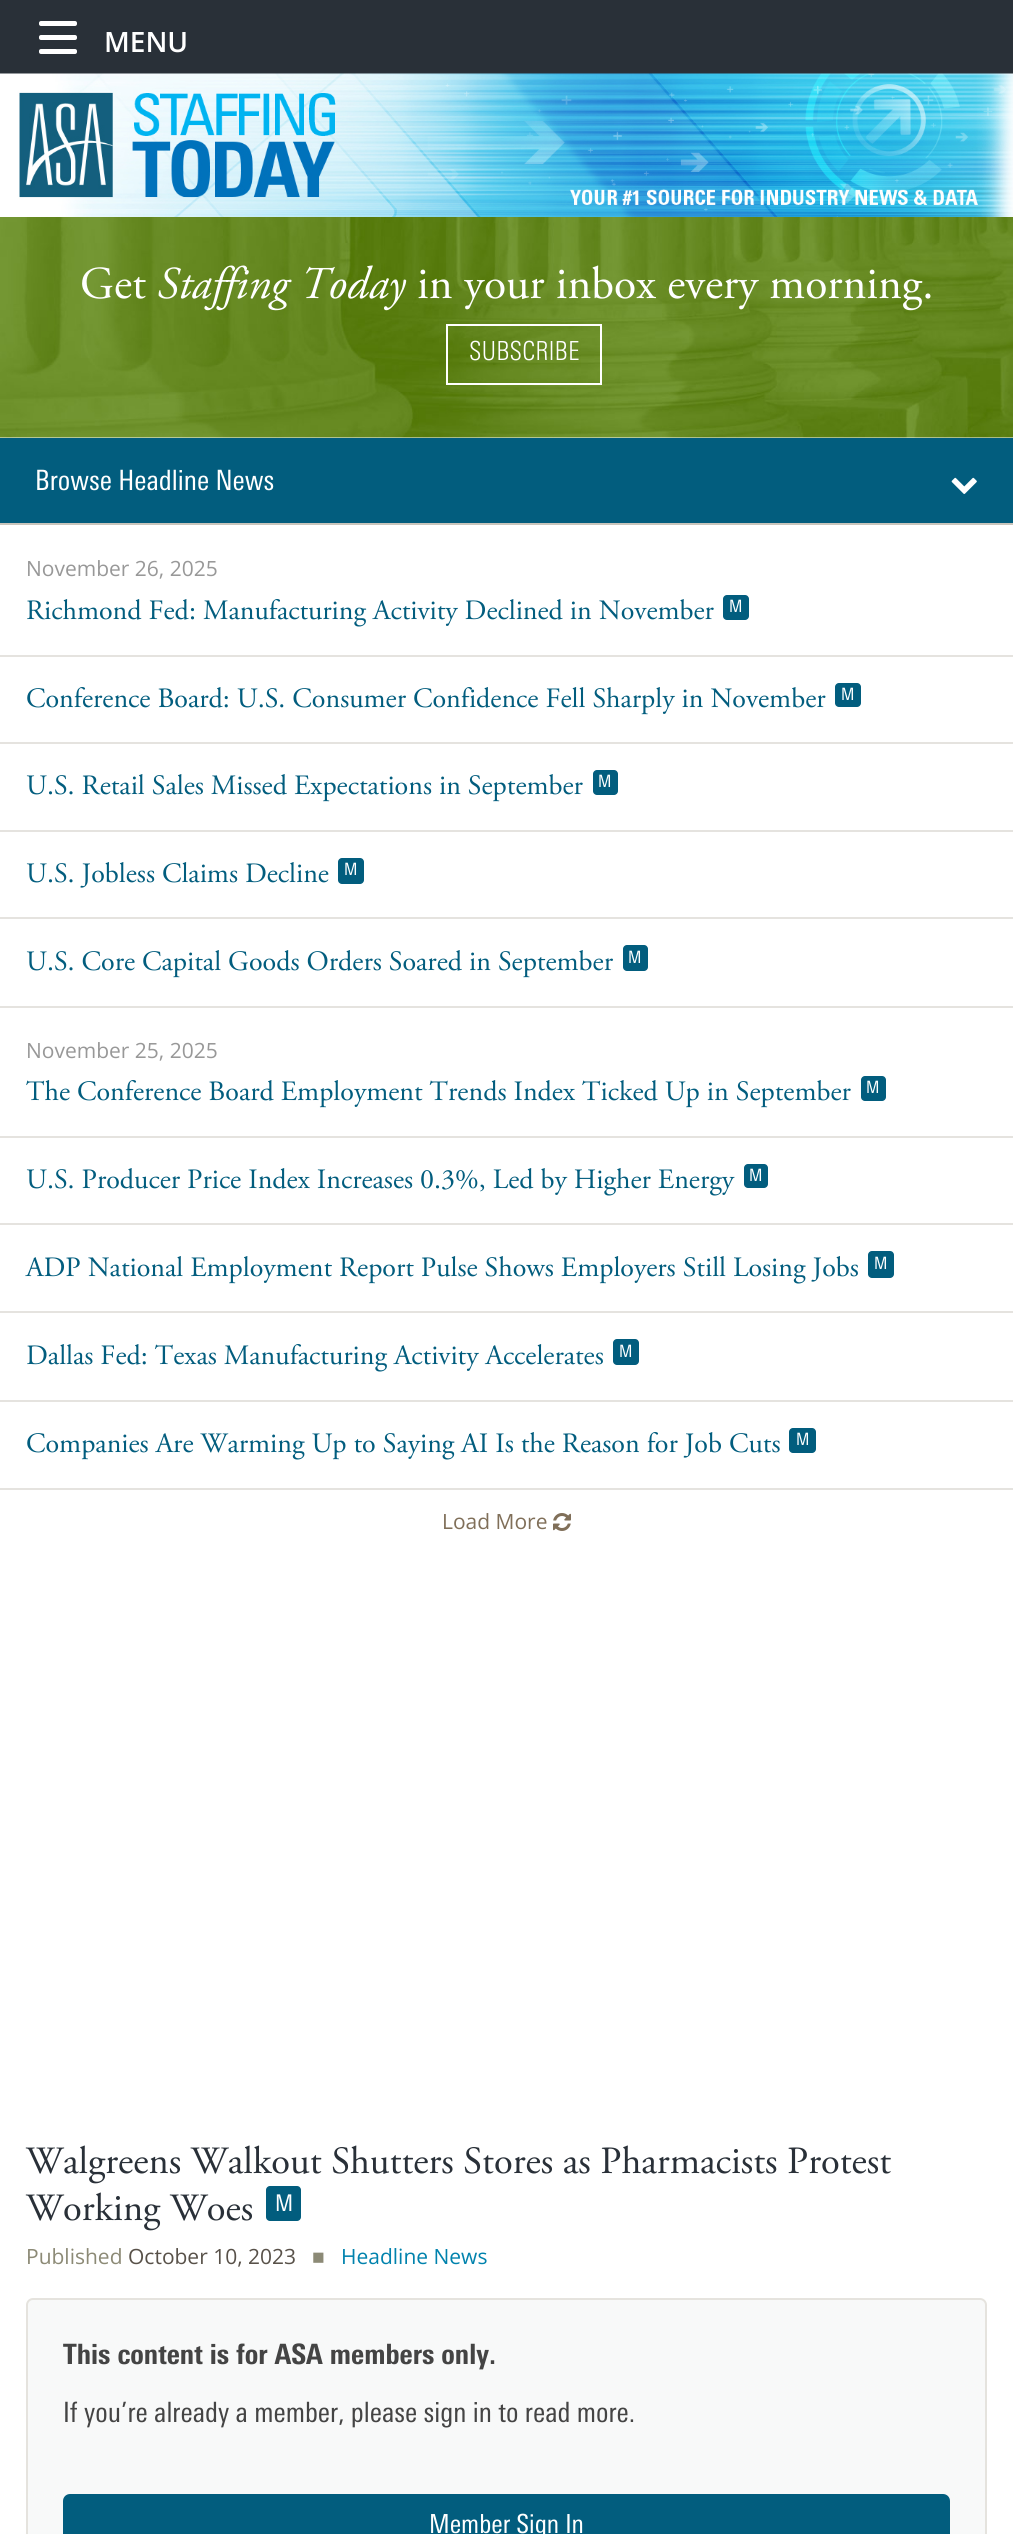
#include <cairo.h>
#include <math.h>
#include <stddef.h>

static cairo_t *ctx;

static void use_color(int r, int g, int b) {
    cairo_set_source_rgb(ctx, r / 255.0, g / 255.0, b / 255.0);
}

static void round_rect(double x, double y, double w, double h, double r) {
    cairo_new_sub_path(ctx);
    cairo_arc(ctx, x + w - r, y + h - r, r, 0, M_PI / 2);
    cairo_arc(ctx, x + r, y + h - r, r, M_PI / 2, M_PI);
    cairo_arc(ctx, x + r, y + r, r, M_PI, 1.5 * M_PI);
    cairo_arc(ctx, x + w - r, y + r, r, 1.5 * M_PI, 2 * M_PI);
    cairo_close_path(ctx);
}

static void picture(const char *path, double x, double y, double w, double h) {
    cairo_surface_t *image = cairo_image_surface_create_from_png(path);
    cairo_save(ctx);
    cairo_set_source_surface(ctx, image, x, y);
    cairo_rectangle(ctx, x, y, w, h);
    cairo_fill(ctx);
    cairo_restore(ctx);
    cairo_surface_destroy(image);
}

int main(void) {
    cairo_surface_t *surface = cairo_image_surface_create(CAIRO_FORMAT_RGB24, 1013, 2534);
    ctx = cairo_create(surface);
    cairo_font_options_t *options = cairo_font_options_create();
    cairo_font_options_set_hint_metrics(options, CAIRO_HINT_METRICS_OFF);
    cairo_font_options_set_hint_style(options, CAIRO_HINT_STYLE_NONE);
    cairo_set_font_options(ctx, options);
    cairo_set_miter_limit(ctx, 4);
    use_color(255, 255, 255);
    cairo_paint(ctx);
    use_color(41, 48, 56);
    cairo_rectangle(ctx, 0, 0, 1013, 74);
    cairo_fill(ctx);
    use_color(255, 255, 255);
    round_rect(39, 21, 38, 5, 2);
    cairo_fill(ctx);
    round_rect(39, 35, 38, 5, 2);
    cairo_fill(ctx);
    round_rect(39, 49, 38, 5, 2);
    cairo_fill(ctx);
    cairo_select_font_face(ctx, "Open Sans SemiBold", CAIRO_FONT_SLANT_NORMAL, CAIRO_FONT_WEIGHT_NORMAL);
    cairo_set_font_size(ctx, 28);
    cairo_move_to(ctx, 104, 52);
    cairo_show_text(ctx, "MENU");
    picture("img1.png", 0, 73, 1013, 144);
    picture("img2.png", 0, 217, 1013, 221);
    cairo_select_font_face(ctx, "Adobe Garamond", CAIRO_FONT_SLANT_NORMAL, CAIRO_FONT_WEIGHT_NORMAL);
    cairo_set_font_size(ctx, 45.5);
    cairo_move_to(ctx, 80, 298);
    cairo_show_text(ctx, "Get");
    cairo_select_font_face(ctx, "Adobe Garamond", CAIRO_FONT_SLANT_ITALIC, CAIRO_FONT_WEIGHT_NORMAL);
    cairo_move_to(ctx, 157, 298);
    cairo_show_text(ctx, "Staffing Today");
    cairo_select_font_face(ctx, "Adobe Garamond", CAIRO_FONT_SLANT_NORMAL, CAIRO_FONT_WEIGHT_NORMAL);
    cairo_move_to(ctx, 417, 298);
    cairo_show_text(ctx, "in your inbox every morning.");
    cairo_rectangle(ctx, 447, 325, 154, 59);
    cairo_stroke(ctx);
    cairo_select_font_face(ctx, "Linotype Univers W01 Light", CAIRO_FONT_SLANT_NORMAL, CAIRO_FONT_WEIGHT_NORMAL);
    cairo_set_font_size(ctx, 26.25);
    cairo_move_to(ctx, 469, 360);
    cairo_show_text(ctx, "SUBSCRIBE");
    use_color(2, 93, 126);
    cairo_rectangle(ctx, 0, 438, 1013, 85);
    cairo_fill(ctx);
    cairo_select_font_face(ctx, "Linotype Univers W01", CAIRO_FONT_SLANT_NORMAL, CAIRO_FONT_WEIGHT_NORMAL);
    cairo_set_font_size(ctx, 28);
    use_color(255, 255, 255);
    cairo_move_to(ctx, 35, 490);
    cairo_show_text(ctx, "Browse Headline News");
    picture("img3.png", 951, 477, 26, 17);
    use_color(201, 197, 188);
    cairo_rectangle(ctx, 0, 523, 1013, 2);
    cairo_fill(ctx);
    use_color(229, 227, 223);
    cairo_rectangle(ctx, 0, 655, 1013, 2);
    cairo_fill(ctx);
    cairo_select_font_face(ctx, "Open Sans", CAIRO_FONT_SLANT_NORMAL, CAIRO_FONT_WEIGHT_NORMAL);
    cairo_set_font_size(ctx, 21);
    use_color(152, 152, 152);
    cairo_move_to(ctx, 26, 576);
    cairo_show_text(ctx, "November 26, 2025");
    cairo_select_font_face(ctx, "Adobe Garamond", CAIRO_FONT_SLANT_NORMAL, CAIRO_FONT_WEIGHT_NORMAL);
    cairo_set_font_size(ctx, 28);
    use_color(2, 93, 126);
    cairo_move_to(ctx, 26, 619);
    cairo_show_text(ctx, "Richmond Fed: Manufacturing Activity Declined in November");
    round_rect(723, 595, 26, 25, 4);
    cairo_fill(ctx);
    cairo_select_font_face(ctx, "Linotype Univers W01", CAIRO_FONT_SLANT_NORMAL, CAIRO_FONT_WEIGHT_NORMAL);
    cairo_set_font_size(ctx, 17);
    use_color(255, 255, 255);
    cairo_move_to(ctx, 729, 612);
    cairo_show_text(ctx, "M");
    use_color(229, 227, 223);
    cairo_rectangle(ctx, 0, 742, 1013, 2);
    cairo_fill(ctx);
    cairo_select_font_face(ctx, "Adobe Garamond", CAIRO_FONT_SLANT_NORMAL, CAIRO_FONT_WEIGHT_NORMAL);
    cairo_set_font_size(ctx, 28);
    use_color(2, 93, 126);
    cairo_move_to(ctx, 26, 707);
    cairo_show_text(ctx, "Conference Board: U.S. Consumer Confidence Fell Sharply in November");
    round_rect(835, 683, 26, 24, 4);
    cairo_fill(ctx);
    cairo_select_font_face(ctx, "Linotype Univers W01", CAIRO_FONT_SLANT_NORMAL, CAIRO_FONT_WEIGHT_NORMAL);
    cairo_set_font_size(ctx, 17);
    use_color(255, 255, 255);
    cairo_move_to(ctx, 841, 700);
    cairo_show_text(ctx, "M");
    use_color(229, 227, 223);
    cairo_rectangle(ctx, 0, 830, 1013, 2);
    cairo_fill(ctx);
    cairo_select_font_face(ctx, "Adobe Garamond", CAIRO_FONT_SLANT_NORMAL, CAIRO_FONT_WEIGHT_NORMAL);
    cairo_set_font_size(ctx, 28);
    use_color(2, 93, 126);
    cairo_move_to(ctx, 26, 794);
    cairo_show_text(ctx, "U.S. Retail Sales Missed Expectations in September");
    round_rect(593, 770, 25, 25, 4);
    cairo_fill(ctx);
    cairo_select_font_face(ctx, "Linotype Univers W01", CAIRO_FONT_SLANT_NORMAL, CAIRO_FONT_WEIGHT_NORMAL);
    cairo_set_font_size(ctx, 17);
    use_color(255, 255, 255);
    cairo_move_to(ctx, 598, 787);
    cairo_show_text(ctx, "M");
    use_color(229, 227, 223);
    cairo_rectangle(ctx, 0, 917, 1013, 2);
    cairo_fill(ctx);
    cairo_select_font_face(ctx, "Adobe Garamond", CAIRO_FONT_SLANT_NORMAL, CAIRO_FONT_WEIGHT_NORMAL);
    cairo_set_font_size(ctx, 28);
    use_color(2, 93, 126);
    cairo_move_to(ctx, 26, 882);
    cairo_show_text(ctx, "U.S. Jobless Claims Decline");
    round_rect(338, 858, 26, 26, 4);
    cairo_fill(ctx);
    cairo_select_font_face(ctx, "Linotype Univers W01", CAIRO_FONT_SLANT_NORMAL, CAIRO_FONT_WEIGHT_NORMAL);
    cairo_set_font_size(ctx, 17);
    use_color(255, 255, 255);
    cairo_move_to(ctx, 344, 875);
    cairo_show_text(ctx, "M");
    use_color(229, 227, 223);
    cairo_rectangle(ctx, 0, 1006, 1013, 2);
    cairo_fill(ctx);
    cairo_select_font_face(ctx, "Adobe Garamond", CAIRO_FONT_SLANT_NORMAL, CAIRO_FONT_WEIGHT_NORMAL);
    cairo_set_font_size(ctx, 28);
    use_color(2, 93, 126);
    cairo_move_to(ctx, 26, 970);
    cairo_show_text(ctx, "U.S. Core Capital Goods Orders Soared in September");
    round_rect(623, 945, 25, 26, 4);
    cairo_fill(ctx);
    cairo_select_font_face(ctx, "Linotype Univers W01", CAIRO_FONT_SLANT_NORMAL, CAIRO_FONT_WEIGHT_NORMAL);
    cairo_set_font_size(ctx, 17);
    use_color(255, 255, 255);
    cairo_move_to(ctx, 628, 963);
    cairo_show_text(ctx, "M");
    use_color(229, 227, 223);
    cairo_rectangle(ctx, 0, 1136, 1013, 2);
    cairo_fill(ctx);
    cairo_select_font_face(ctx, "Open Sans", CAIRO_FONT_SLANT_NORMAL, CAIRO_FONT_WEIGHT_NORMAL);
    cairo_set_font_size(ctx, 21);
    use_color(152, 152, 152);
    cairo_move_to(ctx, 26, 1058);
    cairo_show_text(ctx, "November 25, 2025");
    cairo_select_font_face(ctx, "Adobe Garamond", CAIRO_FONT_SLANT_NORMAL, CAIRO_FONT_WEIGHT_NORMAL);
    cairo_set_font_size(ctx, 28);
    use_color(2, 93, 126);
    cairo_move_to(ctx, 26, 1100);
    cairo_show_text(ctx, "The Conference Board Employment Trends Index Ticked Up in September");
    round_rect(861, 1076, 25, 25, 4);
    cairo_fill(ctx);
    cairo_select_font_face(ctx, "Linotype Univers W01", CAIRO_FONT_SLANT_NORMAL, CAIRO_FONT_WEIGHT_NORMAL);
    cairo_set_font_size(ctx, 17);
    use_color(255, 255, 255);
    cairo_move_to(ctx, 866, 1093);
    cairo_show_text(ctx, "M");
    use_color(229, 227, 223);
    cairo_rectangle(ctx, 0, 1223, 1013, 2);
    cairo_fill(ctx);
    cairo_select_font_face(ctx, "Adobe Garamond", CAIRO_FONT_SLANT_NORMAL, CAIRO_FONT_WEIGHT_NORMAL);
    cairo_set_font_size(ctx, 28);
    use_color(2, 93, 126);
    cairo_move_to(ctx, 26, 1188);
    cairo_show_text(ctx, "U.S. Producer Price Index Increases 0.3%, Led by Higher Energy");
    round_rect(744, 1164, 24, 24, 4);
    cairo_fill(ctx);
    cairo_select_font_face(ctx, "Linotype Univers W01", CAIRO_FONT_SLANT_NORMAL, CAIRO_FONT_WEIGHT_NORMAL);
    cairo_set_font_size(ctx, 17);
    use_color(255, 255, 255);
    cairo_move_to(ctx, 749, 1181);
    cairo_show_text(ctx, "M");
    use_color(229, 227, 223);
    cairo_rectangle(ctx, 0, 1311, 1013, 2);
    cairo_fill(ctx);
    cairo_select_font_face(ctx, "Adobe Garamond", CAIRO_FONT_SLANT_NORMAL, CAIRO_FONT_WEIGHT_NORMAL);
    cairo_set_font_size(ctx, 28);
    use_color(2, 93, 126);
    cairo_move_to(ctx, 26, 1276);
    cairo_show_text(ctx, "ADP National Employment Report Pulse Shows Employers Still Losing Jobs");
    round_rect(868, 1251, 26, 27, 4);
    cairo_fill(ctx);
    cairo_select_font_face(ctx, "Linotype Univers W01", CAIRO_FONT_SLANT_NORMAL, CAIRO_FONT_WEIGHT_NORMAL);
    cairo_set_font_size(ctx, 17);
    use_color(255, 255, 255);
    cairo_move_to(ctx, 874, 1269);
    cairo_show_text(ctx, "M");
    use_color(229, 227, 223);
    cairo_rectangle(ctx, 0, 1400, 1013, 2);
    cairo_fill(ctx);
    cairo_select_font_face(ctx, "Adobe Garamond", CAIRO_FONT_SLANT_NORMAL, CAIRO_FONT_WEIGHT_NORMAL);
    cairo_set_font_size(ctx, 28);
    use_color(2, 93, 126);
    cairo_move_to(ctx, 26, 1364);
    cairo_show_text(ctx, "Dallas Fed: Texas Manufacturing Activity Accelerates");
    round_rect(613, 1339, 26, 26, 4);
    cairo_fill(ctx);
    cairo_select_font_face(ctx, "Linotype Univers W01", CAIRO_FONT_SLANT_NORMAL, CAIRO_FONT_WEIGHT_NORMAL);
    cairo_set_font_size(ctx, 17);
    use_color(255, 255, 255);
    cairo_move_to(ctx, 619, 1357);
    cairo_show_text(ctx, "M");
    cairo_select_font_face(ctx, "Adobe Garamond", CAIRO_FONT_SLANT_NORMAL, CAIRO_FONT_WEIGHT_NORMAL);
    cairo_set_font_size(ctx, 28);
    use_color(2, 93, 126);
    cairo_move_to(ctx, 26, 1452);
    cairo_show_text(ctx, "Companies Are Warming Up to Saying AI Is the Reason for Job Cuts");
    round_rect(789, 1428, 27, 25, 4);
    cairo_fill(ctx);
    cairo_select_font_face(ctx, "Linotype Univers W01", CAIRO_FONT_SLANT_NORMAL, CAIRO_FONT_WEIGHT_NORMAL);
    cairo_set_font_size(ctx, 17);
    use_color(255, 255, 255);
    cairo_move_to(ctx, 796, 1445);
    cairo_show_text(ctx, "M");
    use_color(229, 227, 223);
    cairo_rectangle(ctx, 0, 1488, 1013, 2);
    cairo_fill(ctx);
    cairo_select_font_face(ctx, "Open Sans", CAIRO_FONT_SLANT_NORMAL, CAIRO_FONT_WEIGHT_NORMAL);
    cairo_set_font_size(ctx, 21);
    use_color(128, 111, 89);
    cairo_move_to(ctx, 442, 1529);
    cairo_show_text(ctx, "Load More");
    picture("img4.png", 553, 1513, 18, 18);
    cairo_select_font_face(ctx, "Adobe Garamond", CAIRO_FONT_SLANT_NORMAL, CAIRO_FONT_WEIGHT_NORMAL);
    cairo_set_font_size(ctx, 38.5);
    use_color(41, 48, 56);
    cairo_move_to(ctx, 26, 2173);
    cairo_show_text(ctx, "Walgreens Walkout Shutters Stores as Pharmacists Protest");
    cairo_move_to(ctx, 26, 2220);
    cairo_show_text(ctx, "Working Woes");
    use_color(2, 93, 126);
    round_rect(266, 2186, 35, 35, 4);
    cairo_fill(ctx);
    cairo_select_font_face(ctx, "Linotype Univers W01", CAIRO_FONT_SLANT_NORMAL, CAIRO_FONT_WEIGHT_NORMAL);
    cairo_set_font_size(ctx, 23);
    use_color(255, 255, 255);
    cairo_move_to(ctx, 275, 2211);
    cairo_show_text(ctx, "M");
    cairo_select_font_face(ctx, "Open Sans", CAIRO_FONT_SLANT_NORMAL, CAIRO_FONT_WEIGHT_NORMAL);
    cairo_set_font_size(ctx, 21);
    use_color(140, 138, 118);
    cairo_move_to(ctx, 26, 2264);
    cairo_show_text(ctx, "Published");
    use_color(88, 81, 73);
    cairo_move_to(ctx, 128, 2264);
    cairo_show_text(ctx, "October 10, 2023");
    cairo_select_font_face(ctx, "Liberation Serif", CAIRO_FONT_SLANT_NORMAL, CAIRO_FONT_WEIGHT_NORMAL);
    use_color(140, 138, 118);
    cairo_move_to(ctx, 312, 2264);
    cairo_show_text(ctx, "■");
    cairo_select_font_face(ctx, "Open Sans", CAIRO_FONT_SLANT_NORMAL, CAIRO_FONT_WEIGHT_NORMAL);
    use_color(0, 130, 173);
    cairo_move_to(ctx, 341, 2264);
    cairo_show_text(ctx, "Headline News");
    use_color(248, 249, 249);
    round_rect(27, 2299, 959, 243, 6);
    cairo_fill_preserve(ctx);
    use_color(229, 227, 222);
    cairo_stroke(ctx);
    cairo_select_font_face(ctx, "Linotype Univers W01 Black", CAIRO_FONT_SLANT_NORMAL, CAIRO_FONT_WEIGHT_NORMAL);
    cairo_set_font_size(ctx, 28);
    use_color(68, 68, 68);
    cairo_move_to(ctx, 63, 2364);
    cairo_show_text(ctx, "This content is for ASA members only.");
    cairo_select_font_face(ctx, "Linotype Univers W01", CAIRO_FONT_SLANT_NORMAL, CAIRO_FONT_WEIGHT_NORMAL);
    cairo_move_to(ctx, 63, 2422);
    cairo_show_text(ctx, "If you’re already a member, please sign in to read more.");
    use_color(2, 93, 126);
    round_rect(63, 2494, 887, 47, 7);
    cairo_fill(ctx);
    cairo_set_font_size(ctx, 26.25);
    use_color(255, 255, 255);
    cairo_move_to(ctx, 429, 2533);
    cairo_show_text(ctx, "Member Sign In");
    cairo_surface_write_to_png(surface, "result.png");
    cairo_font_options_destroy(options);
    cairo_destroy(ctx);
    cairo_surface_destroy(surface);
    return 0;
}
